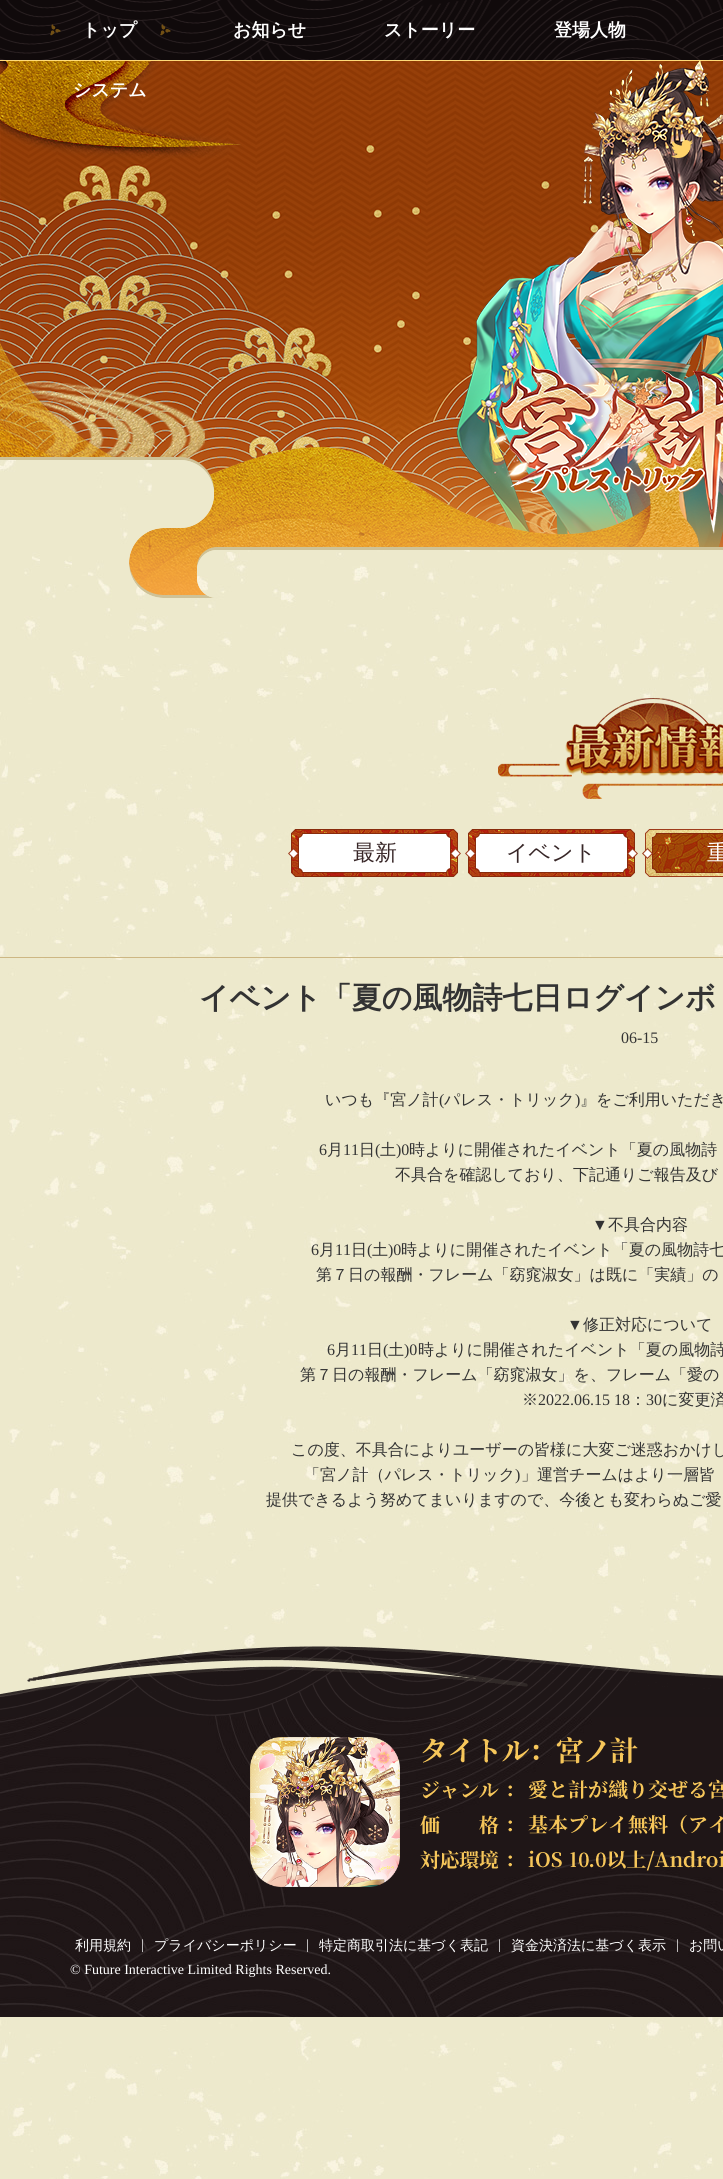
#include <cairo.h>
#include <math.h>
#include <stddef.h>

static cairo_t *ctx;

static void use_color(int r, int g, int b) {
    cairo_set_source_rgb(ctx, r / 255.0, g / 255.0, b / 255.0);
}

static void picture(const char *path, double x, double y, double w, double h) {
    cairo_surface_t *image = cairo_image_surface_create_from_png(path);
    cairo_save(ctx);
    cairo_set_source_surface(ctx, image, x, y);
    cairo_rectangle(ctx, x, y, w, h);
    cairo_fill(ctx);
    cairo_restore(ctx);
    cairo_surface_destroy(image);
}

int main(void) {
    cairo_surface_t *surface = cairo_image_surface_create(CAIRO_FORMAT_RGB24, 723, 2179);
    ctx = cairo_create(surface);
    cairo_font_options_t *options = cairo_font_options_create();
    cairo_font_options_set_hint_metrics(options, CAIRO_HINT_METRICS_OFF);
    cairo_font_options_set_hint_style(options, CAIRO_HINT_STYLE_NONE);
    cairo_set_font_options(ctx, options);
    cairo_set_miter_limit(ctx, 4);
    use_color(255, 255, 255);
    cairo_paint(ctx);
    picture("img1.png", 0, 460, 723, 1719);
    picture("img2.png", 0, 0, 723, 60);
    use_color(254, 218, 121);
    cairo_rectangle(ctx, 0, 60, 723, 1);
    cairo_fill(ctx);
    picture("img3.png", 50, 24, 11, 12);
    cairo_select_font_face(ctx, "WenQuanYi Zen Hei", CAIRO_FONT_SLANT_NORMAL, CAIRO_FONT_WEIGHT_BOLD);
    cairo_set_font_size(ctx, 18);
    use_color(255, 255, 255);
    cairo_move_to(ctx, 82, 36);
    cairo_show_text(ctx, "トップ");
    picture("img4.png", 160, 24, 11, 12);
    cairo_move_to(ctx, 233, 36);
    cairo_show_text(ctx, "お知らせ");
    cairo_move_to(ctx, 384, 36);
    cairo_show_text(ctx, "ストーリー");
    cairo_move_to(ctx, 554, 36);
    cairo_show_text(ctx, "登場人物");
    picture("img6.png", 0, 61, 723, 537);
    cairo_move_to(ctx, 73, 96);
    cairo_show_text(ctx, "システム");
    picture("img5.png", 671, 140, 22, 18);
    picture("img7.png", 492, 363, 231, 171);
    picture("img8.png", 498, 698, 225, 101);
    picture("img9.png", 288, 829, 173, 48);
    cairo_select_font_face(ctx, "WenQuanYi Zen Hei Medium", CAIRO_FONT_SLANT_NORMAL, CAIRO_FONT_WEIGHT_NORMAL);
    cairo_set_font_size(ctx, 22);
    use_color(55, 38, 39);
    cairo_move_to(ctx, 353, 860);
    cairo_show_text(ctx, "最新");
    picture("img10.png", 465, 829, 173, 48);
    cairo_move_to(ctx, 506, 860);
    cairo_show_text(ctx, "イベント");
    picture("img11.png", 642, 829, 81, 48);
    use_color(255, 255, 255);
    cairo_move_to(ctx, 707, 860);
    cairo_show_text(ctx, "重");
    use_color(205, 183, 131);
    cairo_rectangle(ctx, 0, 957, 723, 1);
    cairo_fill(ctx);
    cairo_select_font_face(ctx, "WenQuanYi Zen Hei", CAIRO_FONT_SLANT_NORMAL, CAIRO_FONT_WEIGHT_BOLD);
    cairo_set_font_size(ctx, 30);
    use_color(51, 51, 51);
    cairo_move_to(ctx, 199, 1008);
    cairo_show_text(ctx, "イベント「夏の風物詩七日ログインボ");
    cairo_select_font_face(ctx, "Liberation Serif", CAIRO_FONT_SLANT_NORMAL, CAIRO_FONT_WEIGHT_NORMAL);
    cairo_set_font_size(ctx, 16);
    cairo_move_to(ctx, 621, 1043);
    cairo_show_text(ctx, "06-15");
    cairo_select_font_face(ctx, "WenQuanYi Zen Hei Medium", CAIRO_FONT_SLANT_NORMAL, CAIRO_FONT_WEIGHT_NORMAL);
    cairo_move_to(ctx, 325, 1105);
    cairo_show_text(ctx, "いつも『宮ノ計");
    cairo_select_font_face(ctx, "Liberation Serif", CAIRO_FONT_SLANT_NORMAL, CAIRO_FONT_WEIGHT_NORMAL);
    cairo_move_to(ctx, 439, 1105);
    cairo_show_text(ctx, "(");
    cairo_select_font_face(ctx, "WenQuanYi Zen Hei Medium", CAIRO_FONT_SLANT_NORMAL, CAIRO_FONT_WEIGHT_NORMAL);
    cairo_move_to(ctx, 444, 1105);
    cairo_show_text(ctx, "パレス・トリック");
    cairo_select_font_face(ctx, "Liberation Serif", CAIRO_FONT_SLANT_NORMAL, CAIRO_FONT_WEIGHT_NORMAL);
    cairo_move_to(ctx, 575, 1105);
    cairo_show_text(ctx, ")");
    cairo_select_font_face(ctx, "WenQuanYi Zen Hei Medium", CAIRO_FONT_SLANT_NORMAL, CAIRO_FONT_WEIGHT_NORMAL);
    cairo_move_to(ctx, 580, 1105);
    cairo_show_text(ctx, "』をご利用いただき");
    cairo_select_font_face(ctx, "Liberation Serif", CAIRO_FONT_SLANT_NORMAL, CAIRO_FONT_WEIGHT_NORMAL);
    cairo_move_to(ctx, 319, 1155);
    cairo_show_text(ctx, "6");
    cairo_select_font_face(ctx, "WenQuanYi Zen Hei Medium", CAIRO_FONT_SLANT_NORMAL, CAIRO_FONT_WEIGHT_NORMAL);
    cairo_move_to(ctx, 327, 1155);
    cairo_show_text(ctx, "月");
    cairo_select_font_face(ctx, "Liberation Serif", CAIRO_FONT_SLANT_NORMAL, CAIRO_FONT_WEIGHT_NORMAL);
    cairo_move_to(ctx, 343, 1155);
    cairo_show_text(ctx, "11");
    cairo_select_font_face(ctx, "WenQuanYi Zen Hei Medium", CAIRO_FONT_SLANT_NORMAL, CAIRO_FONT_WEIGHT_NORMAL);
    cairo_move_to(ctx, 359, 1155);
    cairo_show_text(ctx, "日");
    cairo_select_font_face(ctx, "Liberation Serif", CAIRO_FONT_SLANT_NORMAL, CAIRO_FONT_WEIGHT_NORMAL);
    cairo_move_to(ctx, 375, 1155);
    cairo_show_text(ctx, "(");
    cairo_select_font_face(ctx, "WenQuanYi Zen Hei Medium", CAIRO_FONT_SLANT_NORMAL, CAIRO_FONT_WEIGHT_NORMAL);
    cairo_move_to(ctx, 380, 1155);
    cairo_show_text(ctx, "土");
    cairo_select_font_face(ctx, "Liberation Serif", CAIRO_FONT_SLANT_NORMAL, CAIRO_FONT_WEIGHT_NORMAL);
    cairo_move_to(ctx, 396, 1155);
    cairo_show_text(ctx, ")0");
    cairo_select_font_face(ctx, "WenQuanYi Zen Hei Medium", CAIRO_FONT_SLANT_NORMAL, CAIRO_FONT_WEIGHT_NORMAL);
    cairo_move_to(ctx, 409, 1155);
    cairo_show_text(ctx, "時よりに開催されたイベント「夏の風物詩");
    cairo_move_to(ctx, 395, 1180);
    cairo_show_text(ctx, "不具合を確認しており、下記通りご報告及び");
    cairo_select_font_face(ctx, "Liberation Serif", CAIRO_FONT_SLANT_NORMAL, CAIRO_FONT_WEIGHT_NORMAL);
    cairo_move_to(ctx, 592, 1230);
    cairo_show_text(ctx, "▼");
    cairo_select_font_face(ctx, "WenQuanYi Zen Hei Medium", CAIRO_FONT_SLANT_NORMAL, CAIRO_FONT_WEIGHT_NORMAL);
    cairo_move_to(ctx, 608, 1230);
    cairo_show_text(ctx, "不具合内容");
    cairo_select_font_face(ctx, "Liberation Serif", CAIRO_FONT_SLANT_NORMAL, CAIRO_FONT_WEIGHT_NORMAL);
    cairo_move_to(ctx, 311, 1255);
    cairo_show_text(ctx, "6");
    cairo_select_font_face(ctx, "WenQuanYi Zen Hei Medium", CAIRO_FONT_SLANT_NORMAL, CAIRO_FONT_WEIGHT_NORMAL);
    cairo_move_to(ctx, 319, 1255);
    cairo_show_text(ctx, "月");
    cairo_select_font_face(ctx, "Liberation Serif", CAIRO_FONT_SLANT_NORMAL, CAIRO_FONT_WEIGHT_NORMAL);
    cairo_move_to(ctx, 335, 1255);
    cairo_show_text(ctx, "11");
    cairo_select_font_face(ctx, "WenQuanYi Zen Hei Medium", CAIRO_FONT_SLANT_NORMAL, CAIRO_FONT_WEIGHT_NORMAL);
    cairo_move_to(ctx, 351, 1255);
    cairo_show_text(ctx, "日");
    cairo_select_font_face(ctx, "Liberation Serif", CAIRO_FONT_SLANT_NORMAL, CAIRO_FONT_WEIGHT_NORMAL);
    cairo_move_to(ctx, 367, 1255);
    cairo_show_text(ctx, "(");
    cairo_select_font_face(ctx, "WenQuanYi Zen Hei Medium", CAIRO_FONT_SLANT_NORMAL, CAIRO_FONT_WEIGHT_NORMAL);
    cairo_move_to(ctx, 372, 1255);
    cairo_show_text(ctx, "土");
    cairo_select_font_face(ctx, "Liberation Serif", CAIRO_FONT_SLANT_NORMAL, CAIRO_FONT_WEIGHT_NORMAL);
    cairo_move_to(ctx, 388, 1255);
    cairo_show_text(ctx, ")0");
    cairo_select_font_face(ctx, "WenQuanYi Zen Hei Medium", CAIRO_FONT_SLANT_NORMAL, CAIRO_FONT_WEIGHT_NORMAL);
    cairo_move_to(ctx, 401, 1255);
    cairo_show_text(ctx, "時よりに開催されたイベント「夏の風物詩七");
    cairo_move_to(ctx, 316, 1280);
    cairo_show_text(ctx, "第７日の報酬・フレーム「窈窕淑女」は既に「実績」の");
    cairo_select_font_face(ctx, "Liberation Serif", CAIRO_FONT_SLANT_NORMAL, CAIRO_FONT_WEIGHT_NORMAL);
    cairo_move_to(ctx, 567, 1330);
    cairo_show_text(ctx, "▼");
    cairo_select_font_face(ctx, "WenQuanYi Zen Hei Medium", CAIRO_FONT_SLANT_NORMAL, CAIRO_FONT_WEIGHT_NORMAL);
    cairo_move_to(ctx, 583, 1330);
    cairo_show_text(ctx, "修正対応について");
    cairo_select_font_face(ctx, "Liberation Serif", CAIRO_FONT_SLANT_NORMAL, CAIRO_FONT_WEIGHT_NORMAL);
    cairo_move_to(ctx, 327, 1355);
    cairo_show_text(ctx, "6");
    cairo_select_font_face(ctx, "WenQuanYi Zen Hei Medium", CAIRO_FONT_SLANT_NORMAL, CAIRO_FONT_WEIGHT_NORMAL);
    cairo_move_to(ctx, 335, 1355);
    cairo_show_text(ctx, "月");
    cairo_select_font_face(ctx, "Liberation Serif", CAIRO_FONT_SLANT_NORMAL, CAIRO_FONT_WEIGHT_NORMAL);
    cairo_move_to(ctx, 351, 1355);
    cairo_show_text(ctx, "11");
    cairo_select_font_face(ctx, "WenQuanYi Zen Hei Medium", CAIRO_FONT_SLANT_NORMAL, CAIRO_FONT_WEIGHT_NORMAL);
    cairo_move_to(ctx, 367, 1355);
    cairo_show_text(ctx, "日");
    cairo_select_font_face(ctx, "Liberation Serif", CAIRO_FONT_SLANT_NORMAL, CAIRO_FONT_WEIGHT_NORMAL);
    cairo_move_to(ctx, 383, 1355);
    cairo_show_text(ctx, "(");
    cairo_select_font_face(ctx, "WenQuanYi Zen Hei Medium", CAIRO_FONT_SLANT_NORMAL, CAIRO_FONT_WEIGHT_NORMAL);
    cairo_move_to(ctx, 388, 1355);
    cairo_show_text(ctx, "土");
    cairo_select_font_face(ctx, "Liberation Serif", CAIRO_FONT_SLANT_NORMAL, CAIRO_FONT_WEIGHT_NORMAL);
    cairo_move_to(ctx, 404, 1355);
    cairo_show_text(ctx, ")0");
    cairo_select_font_face(ctx, "WenQuanYi Zen Hei Medium", CAIRO_FONT_SLANT_NORMAL, CAIRO_FONT_WEIGHT_NORMAL);
    cairo_move_to(ctx, 418, 1355);
    cairo_show_text(ctx, "時よりに開催されたイベント「夏の風物詩");
    cairo_move_to(ctx, 300, 1380);
    cairo_show_text(ctx, "第７日の報酬・フレーム「窈窕淑女」を、フレーム「愛の");
    cairo_move_to(ctx, 522, 1405);
    cairo_show_text(ctx, "※");
    cairo_select_font_face(ctx, "Liberation Serif", CAIRO_FONT_SLANT_NORMAL, CAIRO_FONT_WEIGHT_NORMAL);
    cairo_move_to(ctx, 538, 1405);
    cairo_show_text(ctx, "2022.06.15 18");
    cairo_select_font_face(ctx, "WenQuanYi Zen Hei Medium", CAIRO_FONT_SLANT_NORMAL, CAIRO_FONT_WEIGHT_NORMAL);
    cairo_move_to(ctx, 630, 1405);
    cairo_show_text(ctx, "：");
    cairo_select_font_face(ctx, "Liberation Serif", CAIRO_FONT_SLANT_NORMAL, CAIRO_FONT_WEIGHT_NORMAL);
    cairo_move_to(ctx, 646, 1405);
    cairo_show_text(ctx, "30");
    cairo_select_font_face(ctx, "WenQuanYi Zen Hei Medium", CAIRO_FONT_SLANT_NORMAL, CAIRO_FONT_WEIGHT_NORMAL);
    cairo_move_to(ctx, 662, 1405);
    cairo_show_text(ctx, "に変更済");
    cairo_move_to(ctx, 291, 1455);
    cairo_show_text(ctx, "この度、不具合によりユーザーの皆様に大変ご迷惑おかけし");
    cairo_move_to(ctx, 304, 1480);
    cairo_show_text(ctx, "「宮ノ計（パレス・トリック");
    cairo_select_font_face(ctx, "Liberation Serif", CAIRO_FONT_SLANT_NORMAL, CAIRO_FONT_WEIGHT_NORMAL);
    cairo_move_to(ctx, 515, 1480);
    cairo_show_text(ctx, ")");
    cairo_select_font_face(ctx, "WenQuanYi Zen Hei Medium", CAIRO_FONT_SLANT_NORMAL, CAIRO_FONT_WEIGHT_NORMAL);
    cairo_move_to(ctx, 521, 1480);
    cairo_show_text(ctx, "」運営チームはより一層皆");
    cairo_move_to(ctx, 266, 1505);
    cairo_show_text(ctx, "提供できるよう努めてまいりますので、今後とも変わらぬご愛");
    picture("img12.png", 0, 1717, 723, 300);
    picture("img13.png", 0, 1646, 723, 71);
    picture("img14.png", 250, 1737, 150, 150);
    picture("img15.png", 420, 1737, 303, 134);
    cairo_set_font_size(ctx, 14);
    use_color(255, 255, 255);
    cairo_move_to(ctx, 75, 1950);
    cairo_show_text(ctx, "利用規約");
    cairo_select_font_face(ctx, "Liberation Serif", CAIRO_FONT_SLANT_NORMAL, CAIRO_FONT_WEIGHT_NORMAL);
    cairo_move_to(ctx, 141, 1949);
    cairo_show_text(ctx, "|");
    cairo_select_font_face(ctx, "WenQuanYi Zen Hei Medium", CAIRO_FONT_SLANT_NORMAL, CAIRO_FONT_WEIGHT_NORMAL);
    cairo_move_to(ctx, 154, 1950);
    cairo_show_text(ctx, "プライバシーポリシー");
    cairo_select_font_face(ctx, "Liberation Serif", CAIRO_FONT_SLANT_NORMAL, CAIRO_FONT_WEIGHT_NORMAL);
    cairo_move_to(ctx, 306, 1949);
    cairo_show_text(ctx, "|");
    cairo_select_font_face(ctx, "WenQuanYi Zen Hei Medium", CAIRO_FONT_SLANT_NORMAL, CAIRO_FONT_WEIGHT_NORMAL);
    cairo_move_to(ctx, 319, 1950);
    cairo_show_text(ctx, "特定商取引法に基づく表記");
    cairo_select_font_face(ctx, "Liberation Serif", CAIRO_FONT_SLANT_NORMAL, CAIRO_FONT_WEIGHT_NORMAL);
    cairo_move_to(ctx, 498, 1949);
    cairo_show_text(ctx, "|");
    cairo_select_font_face(ctx, "WenQuanYi Zen Hei Medium", CAIRO_FONT_SLANT_NORMAL, CAIRO_FONT_WEIGHT_NORMAL);
    cairo_move_to(ctx, 511, 1950);
    cairo_show_text(ctx, "資金決済法に基づく表示");
    cairo_select_font_face(ctx, "Liberation Serif", CAIRO_FONT_SLANT_NORMAL, CAIRO_FONT_WEIGHT_NORMAL);
    cairo_move_to(ctx, 676, 1949);
    cairo_show_text(ctx, "|");
    cairo_select_font_face(ctx, "WenQuanYi Zen Hei Medium", CAIRO_FONT_SLANT_NORMAL, CAIRO_FONT_WEIGHT_NORMAL);
    cairo_move_to(ctx, 689, 1950);
    cairo_show_text(ctx, "お問い");
    cairo_select_font_face(ctx, "Liberation Serif", CAIRO_FONT_SLANT_NORMAL, CAIRO_FONT_WEIGHT_NORMAL);
    cairo_move_to(ctx, 70, 1974);
    cairo_show_text(ctx, "© Future Interactive Limited Rights Reserved.");
    cairo_surface_write_to_png(surface, "result.png");
    cairo_font_options_destroy(options);
    cairo_destroy(ctx);
    cairo_surface_destroy(surface);
    return 0;
}
